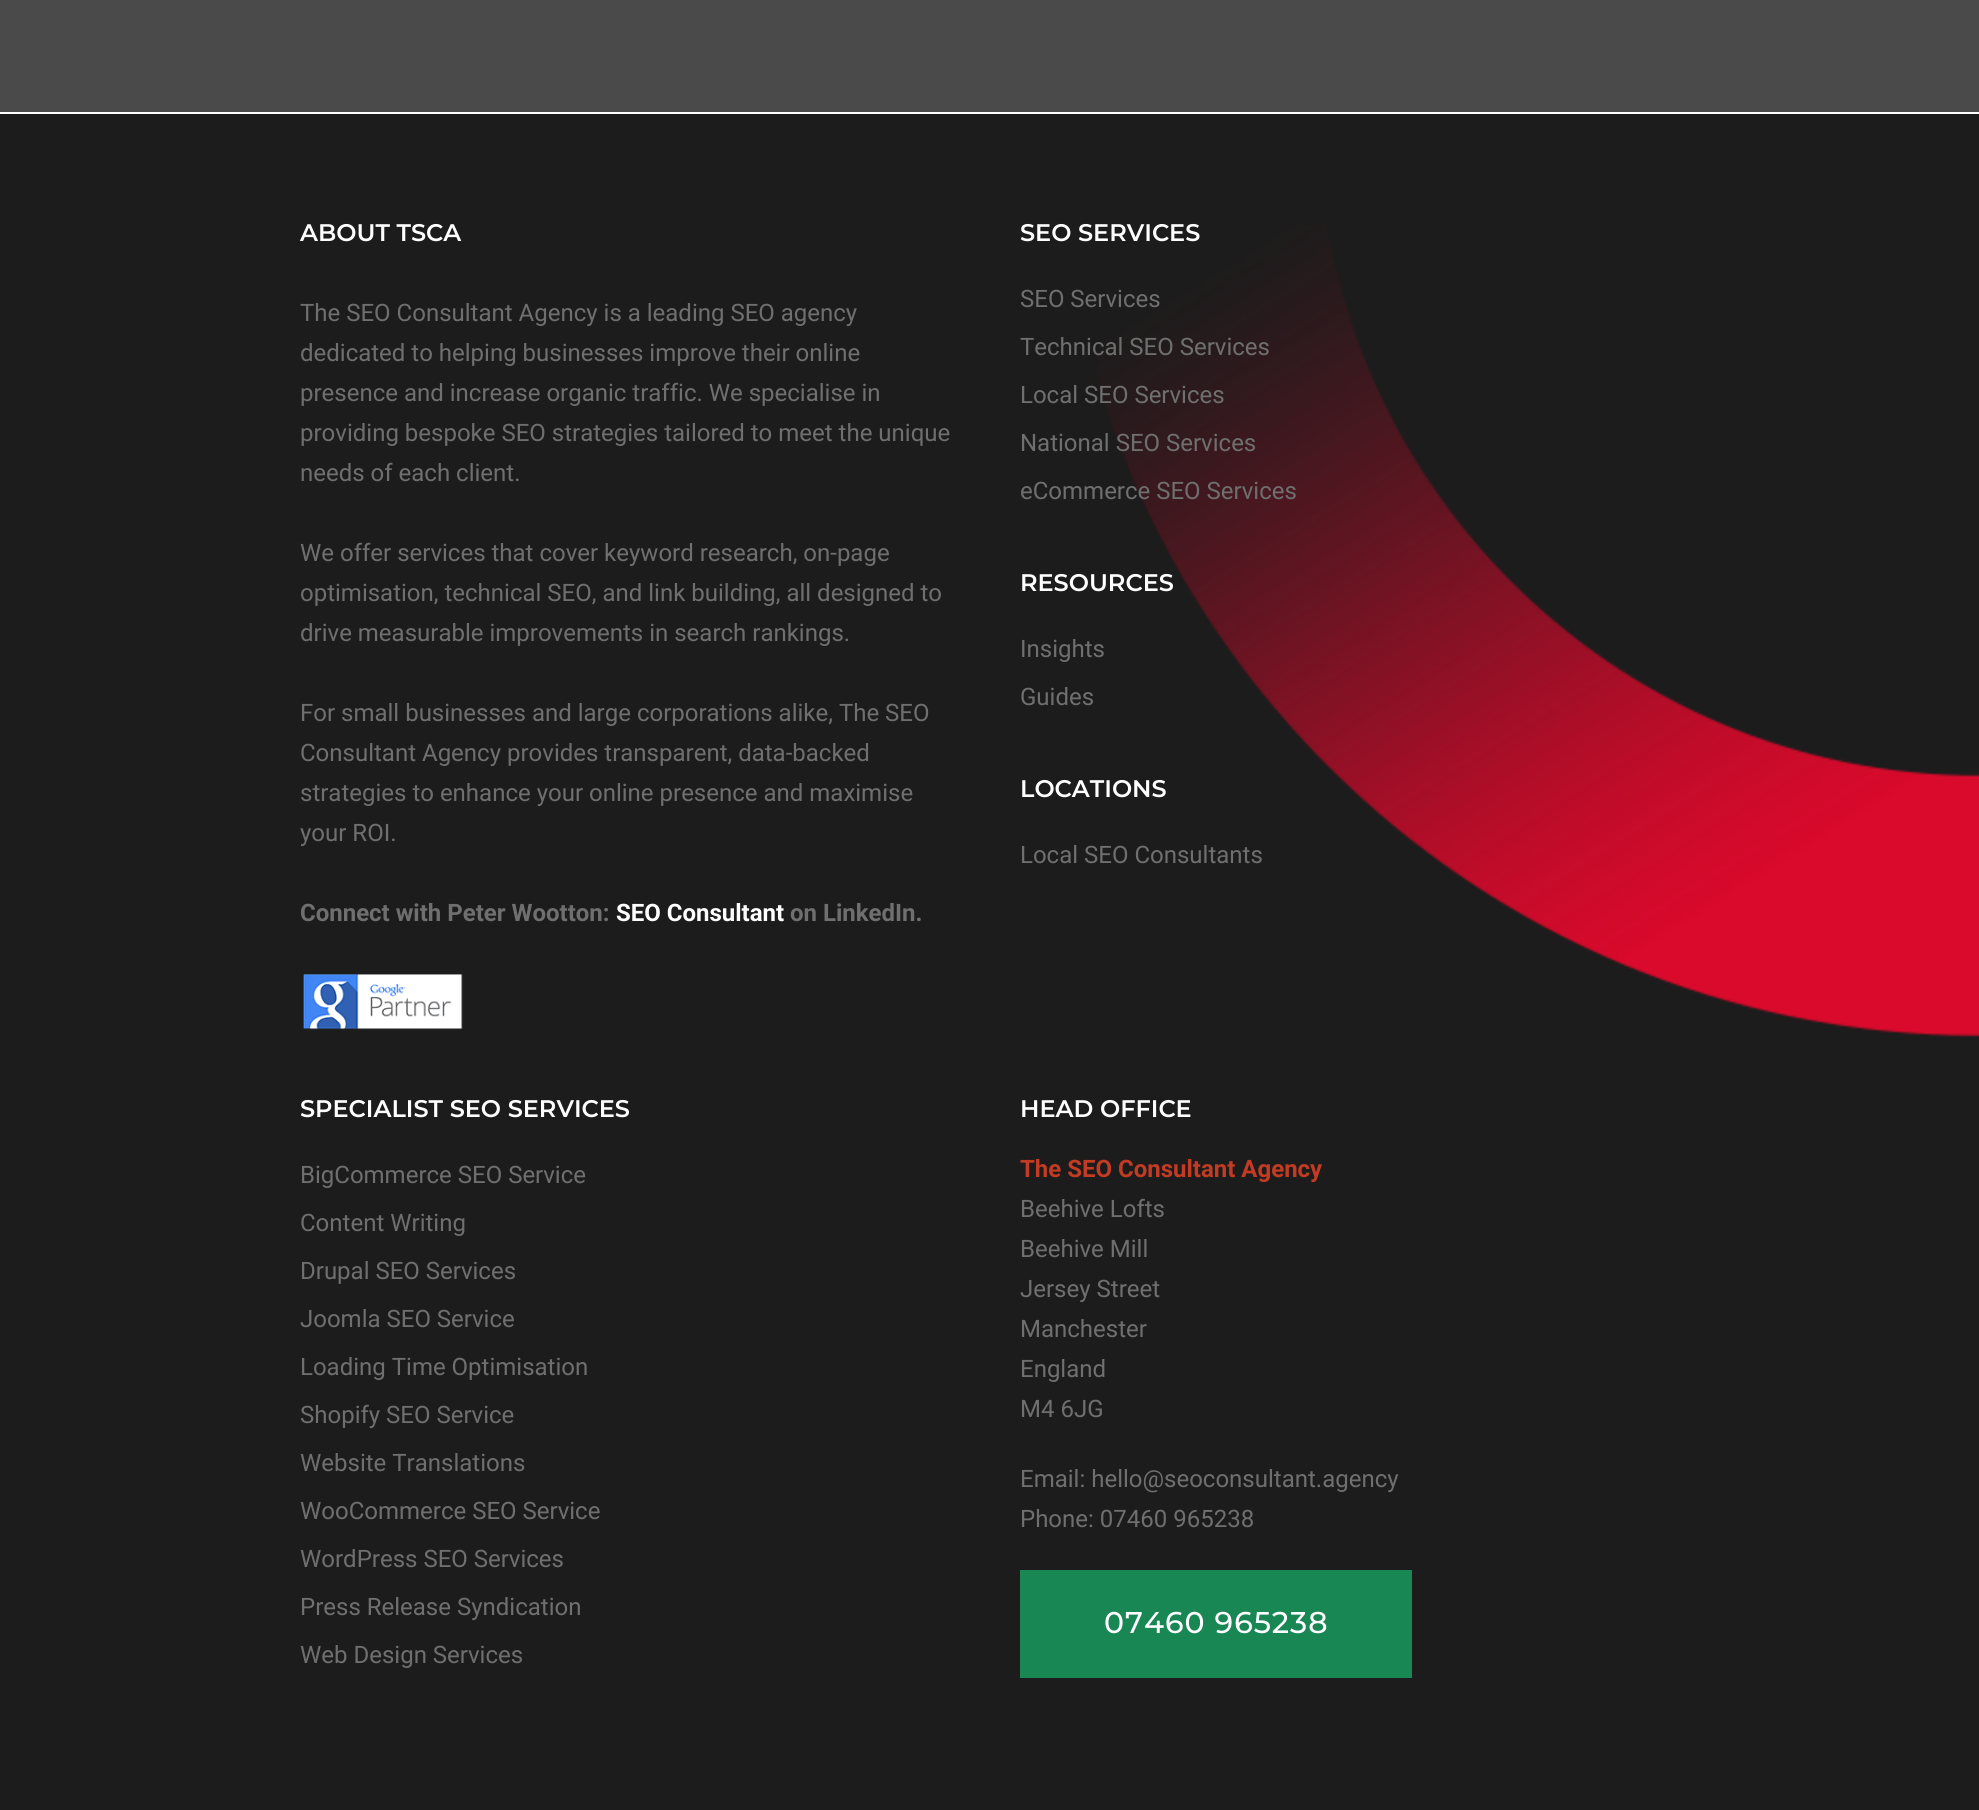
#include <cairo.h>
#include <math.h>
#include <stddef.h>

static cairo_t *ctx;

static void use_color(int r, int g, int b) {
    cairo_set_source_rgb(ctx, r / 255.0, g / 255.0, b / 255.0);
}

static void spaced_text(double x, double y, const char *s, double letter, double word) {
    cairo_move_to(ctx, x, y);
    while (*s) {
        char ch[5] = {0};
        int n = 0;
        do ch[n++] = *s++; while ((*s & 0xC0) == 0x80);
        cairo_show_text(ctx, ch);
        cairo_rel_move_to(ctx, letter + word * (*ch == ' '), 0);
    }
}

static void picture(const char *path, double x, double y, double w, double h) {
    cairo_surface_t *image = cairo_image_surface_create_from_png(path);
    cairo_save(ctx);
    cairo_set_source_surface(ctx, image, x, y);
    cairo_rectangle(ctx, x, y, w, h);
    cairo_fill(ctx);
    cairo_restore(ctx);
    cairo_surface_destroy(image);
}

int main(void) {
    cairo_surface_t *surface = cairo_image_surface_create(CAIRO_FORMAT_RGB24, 1979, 1810);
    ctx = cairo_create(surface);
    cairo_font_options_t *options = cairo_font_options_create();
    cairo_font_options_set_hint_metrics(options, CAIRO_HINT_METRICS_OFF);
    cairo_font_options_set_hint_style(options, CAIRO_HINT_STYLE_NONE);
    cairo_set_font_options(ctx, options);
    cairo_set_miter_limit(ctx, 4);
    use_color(28, 28, 28);
    cairo_paint(ctx);
    use_color(74, 74, 74);
    cairo_rectangle(ctx, 0, 0, 1979, 112);
    cairo_fill(ctx);
    picture("img1.png", 1097, 225, 882, 812);
    use_color(255, 255, 255);
    cairo_rectangle(ctx, 0, 112, 1979, 2);
    cairo_fill(ctx);
    cairo_select_font_face(ctx, "Montserrat SemiBold", CAIRO_FONT_SLANT_NORMAL, CAIRO_FONT_WEIGHT_NORMAL);
    cairo_set_font_size(ctx, 24);
    cairo_move_to(ctx, 300, 241);
    cairo_show_text(ctx, "ABOUT TSCA");
    cairo_select_font_face(ctx, "Roboto", CAIRO_FONT_SLANT_NORMAL, CAIRO_FONT_WEIGHT_NORMAL);
    use_color(111, 111, 111);
    cairo_move_to(ctx, 300, 321);
    cairo_show_text(ctx, "The SEO Consultant Agency is a leading SEO agency");
    cairo_move_to(ctx, 300, 361);
    cairo_show_text(ctx, "dedicated to helping businesses improve their online");
    cairo_move_to(ctx, 300, 401);
    cairo_show_text(ctx, "presence and increase organic traffic. We specialise in");
    cairo_move_to(ctx, 300, 441);
    cairo_show_text(ctx, "providing bespoke SEO strategies tailored to meet the unique");
    cairo_move_to(ctx, 300, 481);
    cairo_show_text(ctx, "needs of each client.");
    cairo_move_to(ctx, 300, 561);
    cairo_show_text(ctx, "We offer services that cover keyword research, on-page");
    cairo_move_to(ctx, 300, 601);
    cairo_show_text(ctx, "optimisation, technical SEO, and link building, all designed to");
    cairo_move_to(ctx, 300, 641);
    cairo_show_text(ctx, "drive measurable improvements in search rankings.");
    cairo_move_to(ctx, 300, 721);
    cairo_show_text(ctx, "For small businesses and large corporations alike, The SEO");
    cairo_move_to(ctx, 300, 761);
    cairo_show_text(ctx, "Consultant Agency provides transparent, data-backed");
    cairo_move_to(ctx, 300, 801);
    cairo_show_text(ctx, "strategies to enhance your online presence and maximise");
    cairo_move_to(ctx, 300, 841);
    cairo_show_text(ctx, "your ROI.");
    cairo_select_font_face(ctx, "Roboto", CAIRO_FONT_SLANT_NORMAL, CAIRO_FONT_WEIGHT_BOLD);
    cairo_move_to(ctx, 300, 921);
    cairo_show_text(ctx, "Connect with Peter Wootton:");
    use_color(255, 255, 255);
    cairo_move_to(ctx, 616, 921);
    cairo_show_text(ctx, "SEO Consultant");
    use_color(111, 111, 111);
    cairo_move_to(ctx, 790, 921);
    cairo_show_text(ctx, "on LinkedIn.");
    picture("img2.png", 303, 974, 160, 56);
    cairo_select_font_face(ctx, "Montserrat SemiBold", CAIRO_FONT_SLANT_NORMAL, CAIRO_FONT_WEIGHT_NORMAL);
    use_color(255, 255, 255);
    cairo_move_to(ctx, 1020, 241);
    cairo_show_text(ctx, "SEO SERVICES");
    cairo_select_font_face(ctx, "Roboto", CAIRO_FONT_SLANT_NORMAL, CAIRO_FONT_WEIGHT_NORMAL);
    use_color(111, 111, 111);
    cairo_move_to(ctx, 1020, 307);
    cairo_show_text(ctx, "SEO Services");
    cairo_move_to(ctx, 1020, 355);
    cairo_show_text(ctx, "Technical SEO Services");
    cairo_move_to(ctx, 1020, 403);
    cairo_show_text(ctx, "Local SEO Services");
    cairo_move_to(ctx, 1020, 451);
    cairo_show_text(ctx, "National SEO Services");
    cairo_move_to(ctx, 1020, 499);
    cairo_show_text(ctx, "eCommerce SEO Services");
    cairo_select_font_face(ctx, "Montserrat SemiBold", CAIRO_FONT_SLANT_NORMAL, CAIRO_FONT_WEIGHT_NORMAL);
    use_color(255, 255, 255);
    cairo_move_to(ctx, 1020, 591);
    cairo_show_text(ctx, "RESOURCES");
    cairo_select_font_face(ctx, "Roboto", CAIRO_FONT_SLANT_NORMAL, CAIRO_FONT_WEIGHT_NORMAL);
    use_color(111, 111, 111);
    cairo_move_to(ctx, 1020, 657);
    cairo_show_text(ctx, "Insights");
    cairo_move_to(ctx, 1020, 705);
    cairo_show_text(ctx, "Guides");
    cairo_select_font_face(ctx, "Montserrat SemiBold", CAIRO_FONT_SLANT_NORMAL, CAIRO_FONT_WEIGHT_NORMAL);
    use_color(255, 255, 255);
    cairo_move_to(ctx, 1020, 797);
    cairo_show_text(ctx, "LOCATIONS");
    cairo_select_font_face(ctx, "Roboto", CAIRO_FONT_SLANT_NORMAL, CAIRO_FONT_WEIGHT_NORMAL);
    use_color(111, 111, 111);
    cairo_move_to(ctx, 1020, 863);
    cairo_show_text(ctx, "Local SEO Consultants");
    cairo_select_font_face(ctx, "Montserrat SemiBold", CAIRO_FONT_SLANT_NORMAL, CAIRO_FONT_WEIGHT_NORMAL);
    use_color(255, 255, 255);
    cairo_move_to(ctx, 300, 1117);
    cairo_show_text(ctx, "SPECIALIST SEO SERVICES");
    cairo_select_font_face(ctx, "Roboto", CAIRO_FONT_SLANT_NORMAL, CAIRO_FONT_WEIGHT_NORMAL);
    use_color(111, 111, 111);
    cairo_move_to(ctx, 300, 1183);
    cairo_show_text(ctx, "BigCommerce SEO Service");
    cairo_move_to(ctx, 300, 1231);
    cairo_show_text(ctx, "Content Writing");
    cairo_move_to(ctx, 300, 1279);
    cairo_show_text(ctx, "Drupal SEO Services");
    cairo_move_to(ctx, 300, 1327);
    cairo_show_text(ctx, "Joomla SEO Service");
    cairo_move_to(ctx, 300, 1375);
    cairo_show_text(ctx, "Loading Time Optimisation");
    cairo_move_to(ctx, 300, 1423);
    cairo_show_text(ctx, "Shopify SEO Service");
    cairo_move_to(ctx, 300, 1471);
    cairo_show_text(ctx, "Website Translations");
    cairo_move_to(ctx, 300, 1519);
    cairo_show_text(ctx, "WooCommerce SEO Service");
    cairo_move_to(ctx, 300, 1567);
    cairo_show_text(ctx, "WordPress SEO Services");
    cairo_move_to(ctx, 300, 1615);
    cairo_show_text(ctx, "Press Release Syndication");
    cairo_move_to(ctx, 300, 1663);
    cairo_show_text(ctx, "Web Design Services");
    cairo_select_font_face(ctx, "Montserrat SemiBold", CAIRO_FONT_SLANT_NORMAL, CAIRO_FONT_WEIGHT_NORMAL);
    use_color(255, 255, 255);
    cairo_move_to(ctx, 1020, 1117);
    cairo_show_text(ctx, "HEAD OFFICE");
    cairo_select_font_face(ctx, "Roboto", CAIRO_FONT_SLANT_NORMAL, CAIRO_FONT_WEIGHT_BOLD);
    use_color(194, 59, 34);
    cairo_move_to(ctx, 1020, 1177);
    cairo_show_text(ctx, "The SEO Consultant Agency");
    cairo_select_font_face(ctx, "Roboto", CAIRO_FONT_SLANT_NORMAL, CAIRO_FONT_WEIGHT_NORMAL);
    use_color(111, 111, 111);
    cairo_move_to(ctx, 1020, 1217);
    cairo_show_text(ctx, "Beehive Lofts");
    cairo_move_to(ctx, 1020, 1257);
    cairo_show_text(ctx, "Beehive Mill");
    cairo_move_to(ctx, 1020, 1297);
    cairo_show_text(ctx, "Jersey Street");
    cairo_move_to(ctx, 1020, 1337);
    cairo_show_text(ctx, "Manchester");
    cairo_move_to(ctx, 1020, 1377);
    cairo_show_text(ctx, "England");
    cairo_move_to(ctx, 1020, 1417);
    cairo_show_text(ctx, "M4 6JG");
    cairo_move_to(ctx, 1020, 1487);
    cairo_show_text(ctx, "Email: hello@seoconsultant.agency");
    cairo_move_to(ctx, 1020, 1527);
    cairo_show_text(ctx, "Phone: 07460 965238");
    use_color(25, 135, 84);
    cairo_rectangle(ctx, 1020, 1570, 392, 108);
    cairo_fill(ctx);
    cairo_select_font_face(ctx, "Montserrat Medium", CAIRO_FONT_SLANT_NORMAL, CAIRO_FONT_WEIGHT_NORMAL);
    cairo_set_font_size(ctx, 30);
    use_color(255, 255, 255);
    spaced_text(1104, 1633, "07460 965238", 1, 0);
    cairo_surface_write_to_png(surface, "result.png");
    cairo_font_options_destroy(options);
    cairo_destroy(ctx);
    cairo_surface_destroy(surface);
    return 0;
}
